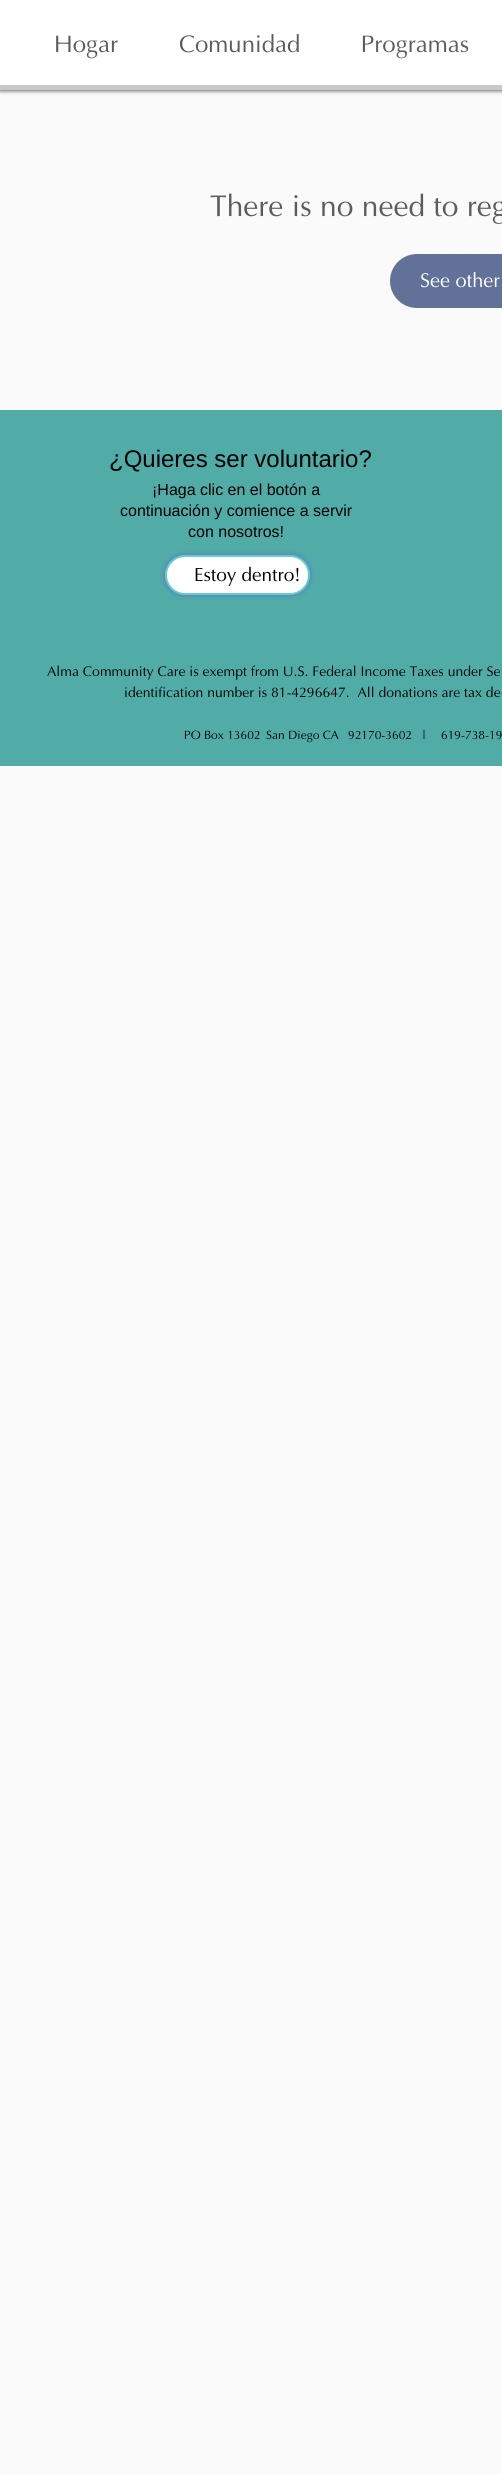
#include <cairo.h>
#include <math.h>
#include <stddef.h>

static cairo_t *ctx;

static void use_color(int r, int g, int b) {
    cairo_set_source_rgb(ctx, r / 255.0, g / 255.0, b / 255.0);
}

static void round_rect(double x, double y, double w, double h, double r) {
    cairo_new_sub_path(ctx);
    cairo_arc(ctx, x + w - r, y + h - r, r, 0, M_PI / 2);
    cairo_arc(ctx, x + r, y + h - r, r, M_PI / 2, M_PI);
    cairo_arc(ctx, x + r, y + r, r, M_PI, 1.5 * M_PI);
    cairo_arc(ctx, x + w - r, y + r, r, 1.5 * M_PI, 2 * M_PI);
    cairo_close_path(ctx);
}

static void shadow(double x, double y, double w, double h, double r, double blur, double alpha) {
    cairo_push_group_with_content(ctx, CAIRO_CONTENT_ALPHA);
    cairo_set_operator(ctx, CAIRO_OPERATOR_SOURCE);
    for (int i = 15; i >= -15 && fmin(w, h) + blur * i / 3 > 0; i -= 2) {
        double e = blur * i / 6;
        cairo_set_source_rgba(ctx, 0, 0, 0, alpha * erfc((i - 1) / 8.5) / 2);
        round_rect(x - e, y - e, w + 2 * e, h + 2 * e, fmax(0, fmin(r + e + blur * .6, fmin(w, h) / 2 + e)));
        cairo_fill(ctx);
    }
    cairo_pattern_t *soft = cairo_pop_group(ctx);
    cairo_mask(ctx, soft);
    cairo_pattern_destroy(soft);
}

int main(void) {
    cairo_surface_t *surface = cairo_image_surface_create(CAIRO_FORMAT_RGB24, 502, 2474);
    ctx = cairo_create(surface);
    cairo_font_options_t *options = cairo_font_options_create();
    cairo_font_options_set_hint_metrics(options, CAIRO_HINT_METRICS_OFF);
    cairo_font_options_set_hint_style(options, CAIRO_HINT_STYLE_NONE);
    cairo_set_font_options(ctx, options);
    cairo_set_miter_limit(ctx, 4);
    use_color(250, 250, 250);
    cairo_paint(ctx);
    use_color(0, 0, 0);
    shadow(0, 1, 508, 90, 0, 2, 0.6);
    use_color(199, 199, 199);
    cairo_rectangle(ctx, 0, 85, 502, 5);
    cairo_fill(ctx);
    use_color(255, 255, 255);
    cairo_rectangle(ctx, 0, 0, 502, 85);
    cairo_fill(ctx);
    cairo_select_font_face(ctx, "Optima", CAIRO_FONT_SLANT_NORMAL, CAIRO_FONT_WEIGHT_NORMAL);
    cairo_set_font_size(ctx, 24);
    use_color(92, 92, 92);
    cairo_move_to(ctx, 54, 52);
    cairo_show_text(ctx, "Hogar");
    cairo_move_to(ctx, 179, 52);
    cairo_show_text(ctx, "Comunidad");
    cairo_move_to(ctx, 361, 52);
    cairo_show_text(ctx, "Programas");
    cairo_set_font_size(ctx, 30);
    cairo_move_to(ctx, 210, 216);
    cairo_show_text(ctx, "There is no need to reg");
    use_color(98, 113, 151);
    round_rect(390, 254, 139, 54, 27);
    cairo_fill(ctx);
    cairo_set_font_size(ctx, 20);
    use_color(255, 255, 255);
    cairo_move_to(ctx, 420, 287);
    cairo_show_text(ctx, "See other");
    use_color(81, 172, 168);
    cairo_rectangle(ctx, 0, 410, 502, 356);
    cairo_fill(ctx);
    cairo_select_font_face(ctx, "Liberation Sans", CAIRO_FONT_SLANT_NORMAL, CAIRO_FONT_WEIGHT_NORMAL);
    cairo_set_font_size(ctx, 24);
    use_color(0, 0, 0);
    cairo_move_to(ctx, 109, 467);
    cairo_show_text(ctx, "¿Quieres ser voluntario?");
    cairo_set_font_size(ctx, 16);
    cairo_move_to(ctx, 152, 495);
    cairo_show_text(ctx, "¡Haga clic en el botón a");
    cairo_move_to(ctx, 120, 516);
    cairo_show_text(ctx, "continuación y comience a servir");
    cairo_move_to(ctx, 188, 537);
    cairo_show_text(ctx, "con nosotros!");
    use_color(95, 91, 205);
    shadow(165, 555, 145, 40, 20, 3, 0.7);
    use_color(255, 255, 255);
    round_rect(166, 556, 143, 38, 19);
    cairo_fill_preserve(ctx);
    use_color(102, 204, 204);
    cairo_stroke(ctx);
    cairo_select_font_face(ctx, "Optima", CAIRO_FONT_SLANT_NORMAL, CAIRO_FONT_WEIGHT_NORMAL);
    cairo_set_font_size(ctx, 19);
    use_color(0, 0, 0);
    cairo_move_to(ctx, 175, 581);
    cairo_show_text(ctx, "¡Estoy dentro!");
    cairo_set_font_size(ctx, 14);
    cairo_move_to(ctx, 47, 676);
    cairo_show_text(ctx, "Alma Community Care is exempt from U.S. Federal Income Taxes under Se");
    cairo_move_to(ctx, 124, 697);
    cairo_show_text(ctx, "identification number is 81-4296647.  All donations are tax de");
    cairo_set_font_size(ctx, 12);
    cairo_move_to(ctx, 184, 739);
    cairo_show_text(ctx, "PO Box 13602");
    cairo_move_to(ctx, 266, 739);
    cairo_show_text(ctx, "San Diego CA");
    cairo_move_to(ctx, 348, 739);
    cairo_show_text(ctx, "92170-3602");
    cairo_move_to(ctx, 422, 739);
    cairo_show_text(ctx, "|");
    cairo_move_to(ctx, 441, 739);
    cairo_show_text(ctx, "619-738-19");
    cairo_surface_write_to_png(surface, "result.png");
    cairo_font_options_destroy(options);
    cairo_destroy(ctx);
    cairo_surface_destroy(surface);
    return 0;
}
